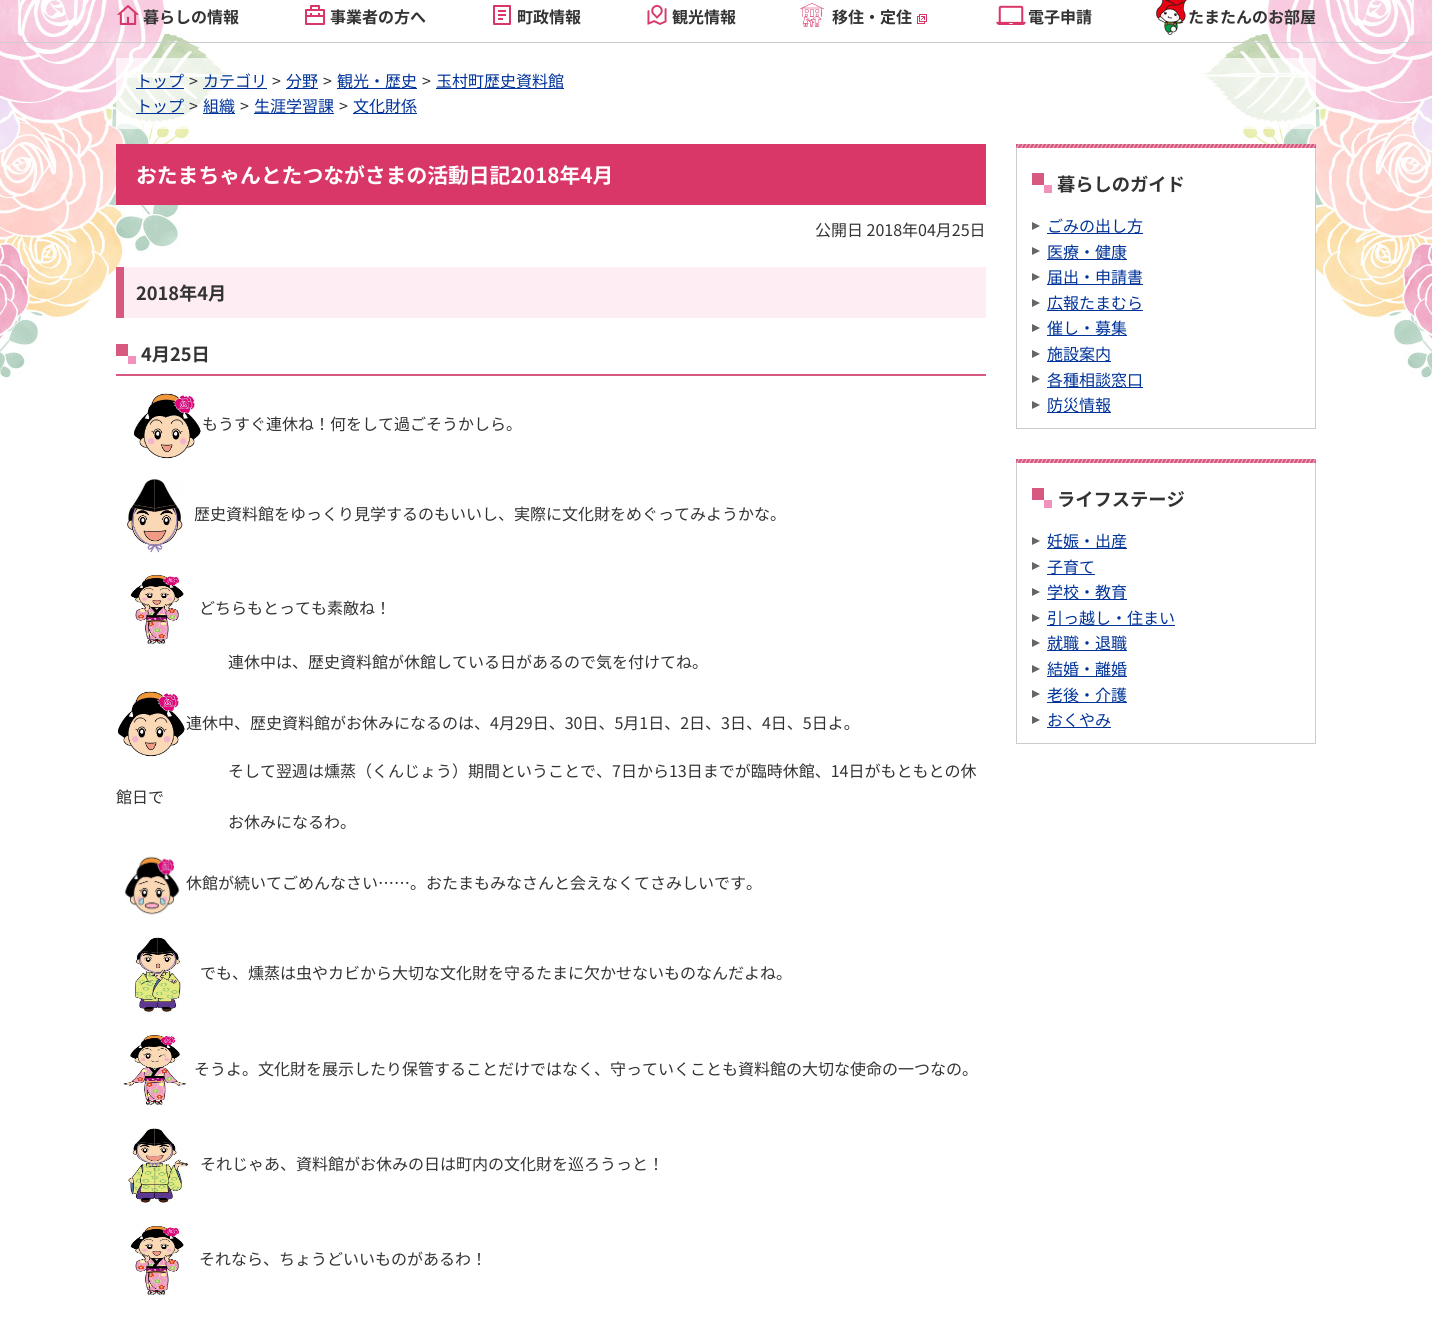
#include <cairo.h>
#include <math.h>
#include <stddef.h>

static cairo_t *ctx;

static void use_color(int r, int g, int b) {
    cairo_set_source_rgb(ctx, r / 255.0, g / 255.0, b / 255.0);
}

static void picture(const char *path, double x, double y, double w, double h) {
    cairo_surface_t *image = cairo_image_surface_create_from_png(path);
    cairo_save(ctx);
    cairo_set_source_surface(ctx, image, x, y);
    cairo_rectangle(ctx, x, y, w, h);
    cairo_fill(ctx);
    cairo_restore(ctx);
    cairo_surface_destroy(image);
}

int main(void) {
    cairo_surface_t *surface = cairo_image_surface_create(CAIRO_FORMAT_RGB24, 1432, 1331);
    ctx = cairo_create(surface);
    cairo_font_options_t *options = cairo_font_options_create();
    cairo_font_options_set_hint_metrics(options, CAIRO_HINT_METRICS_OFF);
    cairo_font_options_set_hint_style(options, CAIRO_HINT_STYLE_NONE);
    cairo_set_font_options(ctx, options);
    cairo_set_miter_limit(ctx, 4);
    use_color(255, 255, 255);
    cairo_paint(ctx);
    picture("img1.png", 0, 0, 1432, 380);
    use_color(204, 204, 204);
    cairo_rectangle(ctx, 0, 42, 1432, 1);
    cairo_fill(ctx);
    picture("img2.png", 117, 5, 22, 20);
    cairo_select_font_face(ctx, "Noto Sans JP", CAIRO_FONT_SLANT_NORMAL, CAIRO_FONT_WEIGHT_BOLD);
    cairo_set_font_size(ctx, 16);
    use_color(51, 51, 51);
    cairo_move_to(ctx, 143, 23);
    cairo_show_text(ctx, "暮らしの情報");
    picture("img3.png", 305, 5, 20, 20);
    cairo_move_to(ctx, 330, 23);
    cairo_show_text(ctx, "事業者の方へ");
    picture("img4.png", 493, 5, 18, 20);
    cairo_move_to(ctx, 517, 23);
    cairo_show_text(ctx, "町政情報");
    picture("img5.png", 647, 5, 20, 20);
    cairo_move_to(ctx, 672, 23);
    cairo_show_text(ctx, "観光情報");
    picture("img6.png", 800, 3, 24, 24);
    cairo_move_to(ctx, 832, 23);
    cairo_show_text(ctx, "移住・定住");
    picture("img7.png", 917, 14, 10, 10);
    picture("img8.png", 996, 5, 30, 20);
    cairo_move_to(ctx, 1028, 23);
    cairo_show_text(ctx, "電子申請");
    picture("img9.png", 1156, 0, 31, 35);
    cairo_move_to(ctx, 1188, 23);
    cairo_show_text(ctx, "たまたんのお部屋");
    cairo_set_source_rgba(ctx, 1, 1, 1, 0.7);
    cairo_rectangle(ctx, 116, 58, 1200, 71);
    cairo_fill(ctx);
    use_color(0, 51, 153);
    cairo_rectangle(ctx, 136, 88, 48, 1);
    cairo_fill(ctx);
    cairo_select_font_face(ctx, "Noto Sans JP", CAIRO_FONT_SLANT_NORMAL, CAIRO_FONT_WEIGHT_NORMAL);
    cairo_move_to(ctx, 136, 87);
    cairo_show_text(ctx, "トップ");
    use_color(51, 51, 51);
    cairo_move_to(ctx, 189, 87);
    cairo_show_text(ctx, ">");
    use_color(0, 51, 153);
    cairo_move_to(ctx, 203, 87);
    cairo_show_text(ctx, "カテゴリ");
    cairo_rectangle(ctx, 203, 88, 64, 1);
    cairo_fill(ctx);
    use_color(51, 51, 51);
    cairo_move_to(ctx, 272, 87);
    cairo_show_text(ctx, ">");
    use_color(0, 51, 153);
    cairo_rectangle(ctx, 286, 88, 32, 1);
    cairo_fill(ctx);
    cairo_move_to(ctx, 286, 87);
    cairo_show_text(ctx, "分野");
    use_color(51, 51, 51);
    cairo_move_to(ctx, 323, 87);
    cairo_show_text(ctx, ">");
    use_color(0, 51, 153);
    cairo_rectangle(ctx, 337, 88, 80, 1);
    cairo_fill(ctx);
    cairo_move_to(ctx, 337, 87);
    cairo_show_text(ctx, "観光・歴史");
    use_color(51, 51, 51);
    cairo_move_to(ctx, 422, 87);
    cairo_show_text(ctx, ">");
    use_color(0, 51, 153);
    cairo_rectangle(ctx, 436, 88, 128, 1);
    cairo_fill(ctx);
    cairo_move_to(ctx, 436, 87);
    cairo_show_text(ctx, "玉村町歴史資料館");
    cairo_rectangle(ctx, 136, 113, 48, 1);
    cairo_fill(ctx);
    cairo_move_to(ctx, 136, 112);
    cairo_show_text(ctx, "トップ");
    use_color(51, 51, 51);
    cairo_move_to(ctx, 189, 112);
    cairo_show_text(ctx, ">");
    use_color(0, 51, 153);
    cairo_rectangle(ctx, 203, 113, 32, 1);
    cairo_fill(ctx);
    cairo_move_to(ctx, 203, 112);
    cairo_show_text(ctx, "組織");
    use_color(51, 51, 51);
    cairo_move_to(ctx, 240, 112);
    cairo_show_text(ctx, ">");
    use_color(0, 51, 153);
    cairo_rectangle(ctx, 254, 113, 80, 1);
    cairo_fill(ctx);
    cairo_move_to(ctx, 254, 112);
    cairo_show_text(ctx, "生涯学習課");
    use_color(51, 51, 51);
    cairo_move_to(ctx, 339, 112);
    cairo_show_text(ctx, ">");
    use_color(0, 51, 153);
    cairo_rectangle(ctx, 353, 113, 64, 1);
    cairo_fill(ctx);
    cairo_move_to(ctx, 353, 112);
    cairo_show_text(ctx, "文化財係");
    use_color(216, 55, 104);
    cairo_rectangle(ctx, 116, 144, 870, 61);
    cairo_fill(ctx);
    cairo_select_font_face(ctx, "Noto Sans JP", CAIRO_FONT_SLANT_NORMAL, CAIRO_FONT_WEIGHT_BOLD);
    cairo_set_font_size(ctx, 20.8);
    use_color(255, 255, 255);
    cairo_move_to(ctx, 136, 183);
    cairo_show_text(ctx, "おたまちゃんとたつながさまの活動日記2018年4月");
    cairo_select_font_face(ctx, "Noto Sans JP", CAIRO_FONT_SLANT_NORMAL, CAIRO_FONT_WEIGHT_NORMAL);
    cairo_set_font_size(ctx, 16);
    use_color(51, 51, 51);
    cairo_move_to(ctx, 815, 236);
    cairo_show_text(ctx, "公開日 2018年04月25日");
    use_color(255, 237, 244);
    cairo_rectangle(ctx, 124, 267, 862, 51);
    cairo_fill(ctx);
    use_color(216, 89, 127);
    cairo_rectangle(ctx, 116, 267, 8, 51);
    cairo_fill(ctx);
    cairo_select_font_face(ctx, "Noto Sans JP", CAIRO_FONT_SLANT_NORMAL, CAIRO_FONT_WEIGHT_BOLD);
    cairo_set_font_size(ctx, 18.25);
    use_color(51, 51, 51);
    cairo_move_to(ctx, 136, 300);
    cairo_show_text(ctx, "2018年4月");
    use_color(240, 146, 188);
    cairo_rectangle(ctx, 128, 356, 8, 8);
    cairo_fill(ctx);
    use_color(216, 89, 127);
    cairo_rectangle(ctx, 116, 344, 12, 12);
    cairo_fill(ctx);
    cairo_rectangle(ctx, 116, 374, 870, 2);
    cairo_fill(ctx);
    use_color(51, 51, 51);
    cairo_move_to(ctx, 141, 361);
    cairo_show_text(ctx, "4月25日");
    picture("img10.png", 133, 393, 68, 66);
    cairo_select_font_face(ctx, "Noto Sans JP", CAIRO_FONT_SLANT_NORMAL, CAIRO_FONT_WEIGHT_NORMAL);
    cairo_set_font_size(ctx, 16);
    cairo_move_to(ctx, 202, 430);
    cairo_show_text(ctx, "もうすぐ連休ね！何をして過ごそうかしら。");
    picture("img11.png", 124, 478, 59, 76);
    cairo_move_to(ctx, 194, 520);
    cairo_show_text(ctx, "歴史資料館をゆっくり見学するのもいいし、実際に文化財をめぐってみようかな。");
    picture("img12.png", 130, 574, 54, 71);
    cairo_move_to(ctx, 199, 614);
    cairo_show_text(ctx, "どちらもとっても素敵ね！");
    cairo_move_to(ctx, 228, 668);
    cairo_show_text(ctx, "連休中は、歴史資料館が休館している日があるので気を付けてね。");
    picture("img13.png", 117, 691, 68, 66);
    cairo_move_to(ctx, 186, 729);
    cairo_show_text(ctx, "連休中、歴史資料館がお休みになるのは、4月29日、30日、5月1日、2日、3日、4日、5日よ。");
    cairo_move_to(ctx, 228, 777);
    cairo_show_text(ctx, "そして翌週は燻蒸（くんじょう）期間ということで、7日から13日までが臨時休館、14日がもともとの休");
    cairo_move_to(ctx, 116, 803);
    cairo_show_text(ctx, "館日で");
    cairo_move_to(ctx, 228, 828);
    cairo_show_text(ctx, "お休みになるわ。");
    picture("img14.png", 124, 856, 56, 59);
    cairo_move_to(ctx, 186, 889);
    cairo_show_text(ctx, "休館が続いてごめんなさい……。おたまもみなさんと会えなくてさみしいです。");
    picture("img15.png", 134, 937, 49, 77);
    cairo_move_to(ctx, 200, 979);
    cairo_show_text(ctx, "でも、燻蒸は虫やカビから大切な文化財を守るたまに欠かせないものなんだよね。");
    picture("img16.png", 123, 1034, 64, 71);
    cairo_move_to(ctx, 194, 1075);
    cairo_show_text(ctx, "そうよ。文化財を展示したり保管することだけではなく、守っていくことも資料館の大切な使命の一つなの。");
    picture("img17.png", 125, 1128, 64, 77);
    cairo_move_to(ctx, 200, 1170);
    cairo_show_text(ctx, "それじゃあ、資料館がお休みの日は町内の文化財を巡ろうっと！");
    picture("img12.png", 130, 1225, 54, 71);
    cairo_move_to(ctx, 199, 1265);
    cairo_show_text(ctx, "それなら、ちょうどいいものがあるわ！");
    use_color(255, 255, 255);
    cairo_rectangle(ctx, 1234, 148, 81, 129);
    cairo_fill(ctx);
    use_color(204, 204, 204);
    cairo_rectangle(ctx, 1315, 144, 1, 285);
    cairo_fill(ctx);
    cairo_rectangle(ctx, 1016, 428, 300, 1);
    cairo_fill(ctx);
    cairo_rectangle(ctx, 1016, 144, 1, 285);
    cairo_fill(ctx);
    use_color(216, 89, 127);
    cairo_rectangle(ctx, 1016, 144, 300, 4);
    cairo_fill(ctx);
    picture("img18.png", 1016, 144, 300, 4);
    use_color(240, 146, 188);
    cairo_rectangle(ctx, 1044, 185, 8, 8);
    cairo_fill(ctx);
    use_color(216, 89, 127);
    cairo_rectangle(ctx, 1032, 173, 12, 12);
    cairo_fill(ctx);
    cairo_select_font_face(ctx, "Noto Sans JP", CAIRO_FONT_SLANT_NORMAL, CAIRO_FONT_WEIGHT_BOLD);
    cairo_set_font_size(ctx, 18.25);
    use_color(51, 51, 51);
    cairo_move_to(ctx, 1057, 191);
    cairo_show_text(ctx, "暮らしのガイド");
    use_color(102, 102, 102);
    cairo_new_path(ctx);
    cairo_move_to(ctx, 1032, 222);
    cairo_line_to(ctx, 1032, 230);
    cairo_line_to(ctx, 1040, 226);
    cairo_close_path(ctx);
    cairo_move_to(ctx, 1032, 247);
    cairo_line_to(ctx, 1032, 255);
    cairo_line_to(ctx, 1040, 251);
    cairo_close_path(ctx);
    cairo_move_to(ctx, 1032, 273);
    cairo_line_to(ctx, 1032, 281);
    cairo_line_to(ctx, 1040, 277);
    cairo_close_path(ctx);
    cairo_fill(ctx);
    use_color(0, 51, 153);
    cairo_rectangle(ctx, 1047, 233, 96, 1);
    cairo_fill(ctx);
    cairo_select_font_face(ctx, "Noto Sans JP", CAIRO_FONT_SLANT_NORMAL, CAIRO_FONT_WEIGHT_NORMAL);
    cairo_set_font_size(ctx, 16);
    cairo_move_to(ctx, 1047, 232);
    cairo_show_text(ctx, "ごみの出し方");
    cairo_rectangle(ctx, 1047, 259, 80, 1);
    cairo_fill(ctx);
    cairo_move_to(ctx, 1047, 258);
    cairo_show_text(ctx, "医療・健康");
    cairo_rectangle(ctx, 1047, 284, 96, 1);
    cairo_fill(ctx);
    cairo_move_to(ctx, 1047, 283);
    cairo_show_text(ctx, "届出・申請書");
    use_color(102, 102, 102);
    cairo_new_path(ctx);
    cairo_move_to(ctx, 1032, 299);
    cairo_line_to(ctx, 1032, 307);
    cairo_line_to(ctx, 1040, 303);
    cairo_close_path(ctx);
    cairo_move_to(ctx, 1032, 324);
    cairo_line_to(ctx, 1032, 332);
    cairo_line_to(ctx, 1040, 328);
    cairo_close_path(ctx);
    cairo_move_to(ctx, 1032, 350);
    cairo_line_to(ctx, 1032, 358);
    cairo_line_to(ctx, 1040, 354);
    cairo_close_path(ctx);
    cairo_fill(ctx);
    use_color(0, 51, 153);
    cairo_rectangle(ctx, 1047, 310, 96, 1);
    cairo_fill(ctx);
    cairo_move_to(ctx, 1047, 309);
    cairo_show_text(ctx, "広報たまむら");
    cairo_rectangle(ctx, 1047, 335, 80, 1);
    cairo_fill(ctx);
    cairo_move_to(ctx, 1047, 334);
    cairo_show_text(ctx, "催し・募集");
    cairo_rectangle(ctx, 1047, 361, 64, 1);
    cairo_fill(ctx);
    cairo_move_to(ctx, 1047, 360);
    cairo_show_text(ctx, "施設案内");
    use_color(102, 102, 102);
    cairo_new_path(ctx);
    cairo_move_to(ctx, 1032, 375);
    cairo_line_to(ctx, 1032, 383);
    cairo_line_to(ctx, 1040, 379);
    cairo_close_path(ctx);
    cairo_move_to(ctx, 1032, 401);
    cairo_line_to(ctx, 1032, 409);
    cairo_line_to(ctx, 1040, 405);
    cairo_close_path(ctx);
    cairo_fill(ctx);
    use_color(0, 51, 153);
    cairo_rectangle(ctx, 1047, 387, 96, 1);
    cairo_fill(ctx);
    cairo_move_to(ctx, 1047, 386);
    cairo_show_text(ctx, "各種相談窓口");
    cairo_rectangle(ctx, 1047, 412, 64, 1);
    cairo_fill(ctx);
    cairo_move_to(ctx, 1047, 411);
    cairo_show_text(ctx, "防災情報");
    use_color(204, 204, 204);
    cairo_rectangle(ctx, 1315, 459, 1, 285);
    cairo_fill(ctx);
    cairo_rectangle(ctx, 1016, 743, 300, 1);
    cairo_fill(ctx);
    cairo_rectangle(ctx, 1016, 459, 1, 285);
    cairo_fill(ctx);
    use_color(216, 89, 127);
    cairo_rectangle(ctx, 1016, 459, 300, 4);
    cairo_fill(ctx);
    picture("img18.png", 1016, 459, 300, 4);
    use_color(240, 146, 188);
    cairo_rectangle(ctx, 1044, 500, 8, 8);
    cairo_fill(ctx);
    use_color(216, 89, 127);
    cairo_rectangle(ctx, 1032, 488, 12, 12);
    cairo_fill(ctx);
    cairo_select_font_face(ctx, "Noto Sans JP", CAIRO_FONT_SLANT_NORMAL, CAIRO_FONT_WEIGHT_BOLD);
    cairo_set_font_size(ctx, 18.25);
    use_color(51, 51, 51);
    cairo_move_to(ctx, 1057, 506);
    cairo_show_text(ctx, "ライフステージ");
    use_color(102, 102, 102);
    cairo_new_path(ctx);
    cairo_move_to(ctx, 1032, 537);
    cairo_line_to(ctx, 1032, 545);
    cairo_line_to(ctx, 1040, 541);
    cairo_close_path(ctx);
    cairo_move_to(ctx, 1032, 562);
    cairo_line_to(ctx, 1032, 570);
    cairo_line_to(ctx, 1040, 566);
    cairo_close_path(ctx);
    cairo_move_to(ctx, 1032, 588);
    cairo_line_to(ctx, 1032, 596);
    cairo_line_to(ctx, 1040, 592);
    cairo_close_path(ctx);
    cairo_fill(ctx);
    use_color(0, 51, 153);
    cairo_rectangle(ctx, 1047, 548, 80, 1);
    cairo_fill(ctx);
    cairo_select_font_face(ctx, "Noto Sans JP", CAIRO_FONT_SLANT_NORMAL, CAIRO_FONT_WEIGHT_NORMAL);
    cairo_set_font_size(ctx, 16);
    cairo_move_to(ctx, 1047, 547);
    cairo_show_text(ctx, "妊娠・出産");
    cairo_rectangle(ctx, 1047, 574, 48, 1);
    cairo_fill(ctx);
    cairo_move_to(ctx, 1047, 573);
    cairo_show_text(ctx, "子育て");
    cairo_rectangle(ctx, 1047, 599, 80, 1);
    cairo_fill(ctx);
    cairo_move_to(ctx, 1047, 598);
    cairo_show_text(ctx, "学校・教育");
    use_color(102, 102, 102);
    cairo_new_path(ctx);
    cairo_move_to(ctx, 1032, 614);
    cairo_line_to(ctx, 1032, 622);
    cairo_line_to(ctx, 1040, 618);
    cairo_close_path(ctx);
    cairo_move_to(ctx, 1032, 639);
    cairo_line_to(ctx, 1032, 647);
    cairo_line_to(ctx, 1040, 643);
    cairo_close_path(ctx);
    cairo_move_to(ctx, 1032, 665);
    cairo_line_to(ctx, 1032, 673);
    cairo_line_to(ctx, 1040, 669);
    cairo_close_path(ctx);
    cairo_fill(ctx);
    use_color(0, 51, 153);
    cairo_rectangle(ctx, 1047, 625, 128, 1);
    cairo_fill(ctx);
    cairo_move_to(ctx, 1047, 624);
    cairo_show_text(ctx, "引っ越し・住まい");
    cairo_rectangle(ctx, 1047, 650, 80, 1);
    cairo_fill(ctx);
    cairo_move_to(ctx, 1047, 649);
    cairo_show_text(ctx, "就職・退職");
    cairo_rectangle(ctx, 1047, 676, 80, 1);
    cairo_fill(ctx);
    cairo_move_to(ctx, 1047, 675);
    cairo_show_text(ctx, "結婚・離婚");
    use_color(102, 102, 102);
    cairo_new_path(ctx);
    cairo_move_to(ctx, 1032, 690);
    cairo_line_to(ctx, 1032, 698);
    cairo_line_to(ctx, 1040, 694);
    cairo_close_path(ctx);
    cairo_move_to(ctx, 1032, 716);
    cairo_line_to(ctx, 1032, 724);
    cairo_line_to(ctx, 1040, 720);
    cairo_close_path(ctx);
    cairo_fill(ctx);
    use_color(0, 51, 153);
    cairo_rectangle(ctx, 1047, 702, 80, 1);
    cairo_fill(ctx);
    cairo_move_to(ctx, 1047, 701);
    cairo_show_text(ctx, "老後・介護");
    cairo_move_to(ctx, 1047, 726);
    cairo_show_text(ctx, "おくやみ");
    cairo_rectangle(ctx, 1047, 727, 64, 1);
    cairo_fill(ctx);
    cairo_surface_write_to_png(surface, "result.png");
    cairo_font_options_destroy(options);
    cairo_destroy(ctx);
    cairo_surface_destroy(surface);
    return 0;
}
